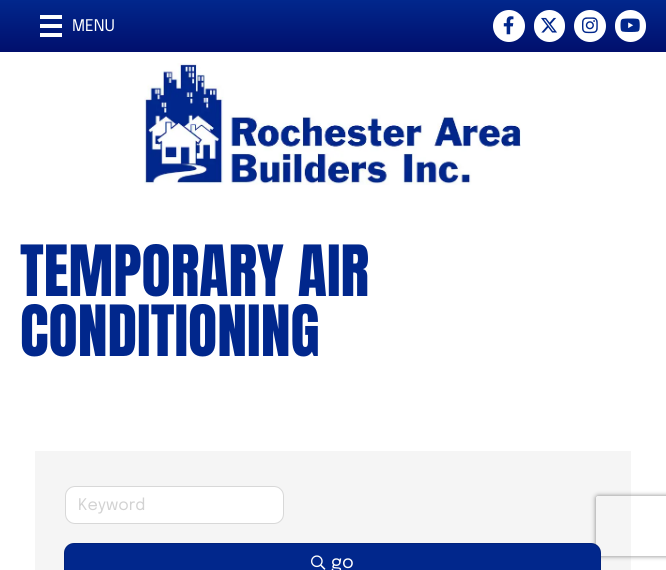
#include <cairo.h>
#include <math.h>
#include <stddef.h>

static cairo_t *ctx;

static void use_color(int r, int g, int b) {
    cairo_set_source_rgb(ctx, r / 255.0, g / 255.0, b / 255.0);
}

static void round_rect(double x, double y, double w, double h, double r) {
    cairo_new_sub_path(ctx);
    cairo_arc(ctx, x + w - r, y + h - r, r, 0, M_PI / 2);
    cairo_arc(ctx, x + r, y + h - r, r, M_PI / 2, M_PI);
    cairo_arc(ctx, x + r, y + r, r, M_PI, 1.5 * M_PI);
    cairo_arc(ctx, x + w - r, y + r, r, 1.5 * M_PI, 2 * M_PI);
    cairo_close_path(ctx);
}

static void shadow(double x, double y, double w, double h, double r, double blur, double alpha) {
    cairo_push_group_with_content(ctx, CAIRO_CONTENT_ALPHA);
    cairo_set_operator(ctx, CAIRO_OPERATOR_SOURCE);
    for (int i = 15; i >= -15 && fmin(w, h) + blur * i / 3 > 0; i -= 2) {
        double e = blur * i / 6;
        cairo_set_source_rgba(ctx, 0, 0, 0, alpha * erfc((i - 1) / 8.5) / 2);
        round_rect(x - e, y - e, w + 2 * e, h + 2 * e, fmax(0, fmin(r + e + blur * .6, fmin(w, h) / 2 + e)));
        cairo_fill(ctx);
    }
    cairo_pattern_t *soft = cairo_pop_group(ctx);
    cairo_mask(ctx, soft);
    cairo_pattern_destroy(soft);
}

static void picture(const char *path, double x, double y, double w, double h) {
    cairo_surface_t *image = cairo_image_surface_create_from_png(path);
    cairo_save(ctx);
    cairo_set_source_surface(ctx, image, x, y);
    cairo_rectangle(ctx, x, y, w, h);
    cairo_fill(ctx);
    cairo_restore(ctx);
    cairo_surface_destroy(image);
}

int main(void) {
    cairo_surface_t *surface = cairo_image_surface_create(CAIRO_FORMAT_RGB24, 666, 570);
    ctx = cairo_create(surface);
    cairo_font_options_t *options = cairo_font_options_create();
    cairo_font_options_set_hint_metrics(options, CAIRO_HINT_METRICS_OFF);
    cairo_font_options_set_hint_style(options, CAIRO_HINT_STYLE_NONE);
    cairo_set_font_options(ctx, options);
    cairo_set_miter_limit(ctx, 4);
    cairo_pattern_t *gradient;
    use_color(255, 255, 255);
    cairo_paint(ctx);
    gradient = cairo_pattern_create_linear(333, 0, 333, 52);
    cairo_pattern_add_color_stop_rgba(gradient, 0, 0.004, 0.153, 0.549, 1);
    cairo_pattern_add_color_stop_rgba(gradient, 1, 0.004, 0.059, 0.427, 1);
    cairo_set_source(ctx, gradient);
    cairo_pattern_destroy(gradient);
    cairo_rectangle(ctx, 0, 0, 666, 52);
    cairo_fill(ctx);
    use_color(255, 255, 255);
    cairo_rectangle(ctx, 40, 15, 22, 4);
    cairo_fill(ctx);
    cairo_rectangle(ctx, 40, 24, 22, 4);
    cairo_fill(ctx);
    cairo_rectangle(ctx, 40, 33, 22, 4);
    cairo_fill(ctx);
    cairo_select_font_face(ctx, "Epilogue", CAIRO_FONT_SLANT_NORMAL, CAIRO_FONT_WEIGHT_NORMAL);
    cairo_set_font_size(ctx, 16);
    cairo_move_to(ctx, 72, 31);
    cairo_show_text(ctx, "MENU");
    cairo_new_path(ctx);
    cairo_arc(ctx, 509, 26, 16, 0, 2 * M_PI);
    cairo_fill(ctx);
    picture("img1.png", 503, 16, 11, 19);
    round_rect(534, 10, 31, 32, 15.5);
    cairo_fill(ctx);
    picture("img2.png", 541, 17, 16, 16);
    cairo_arc(ctx, 590, 26, 16, 0, 2 * M_PI);
    cairo_fill(ctx);
    picture("img3.png", 582, 17, 16, 17);
    round_rect(615, 10, 31, 32, 15.5);
    cairo_fill(ctx);
    picture("img4.png", 620, 18, 20, 14);
    picture("img5.png", 144, 63, 377, 122);
    cairo_select_font_face(ctx, "Anton", CAIRO_FONT_SLANT_NORMAL, CAIRO_FONT_WEIGHT_NORMAL);
    cairo_set_font_size(ctx, 60);
    use_color(1, 39, 140);
    cairo_move_to(ctx, 20, 296);
    cairo_show_text(ctx, "TEMPORARY AIR");
    cairo_move_to(ctx, 20, 356);
    cairo_show_text(ctx, "CONDITIONING");
    use_color(245, 245, 245);
    cairo_rectangle(ctx, 35, 451, 596, 119);
    cairo_fill(ctx);
    use_color(255, 255, 255);
    round_rect(66, 487, 217, 36, 9);
    cairo_fill(ctx);
    round_rect(65.5, 486.5, 218, 37, 9.5);
    cairo_set_source_rgba(ctx, 0, 0, 0, 0.12);
    cairo_set_line_width(ctx, 1);
    cairo_stroke(ctx);
    cairo_select_font_face(ctx, "Epilogue", CAIRO_FONT_SLANT_NORMAL, CAIRO_FONT_WEIGHT_NORMAL);
    cairo_set_font_size(ctx, 16);
    use_color(210, 210, 210);
    cairo_move_to(ctx, 78, 510);
    cairo_show_text(ctx, "Keyword");
    cairo_save(ctx);
    cairo_set_fill_rule(ctx, CAIRO_FILL_RULE_EVEN_ODD);
    cairo_new_path(ctx);
    cairo_move_to(ctx, 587, 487);
    cairo_line_to(ctx, 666, 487);
    cairo_line_to(ctx, 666, 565);
    cairo_line_to(ctx, 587, 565);
    cairo_close_path(ctx);
    cairo_move_to(ctx, 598, 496);
    cairo_line_to(ctx, 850, 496);
    cairo_curve_to(ctx, 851, 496, 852, 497, 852, 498);
    cairo_line_to(ctx, 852, 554);
    cairo_curve_to(ctx, 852, 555, 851, 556, 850, 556);
    cairo_line_to(ctx, 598, 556);
    cairo_curve_to(ctx, 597, 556, 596, 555, 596, 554);
    cairo_line_to(ctx, 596, 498);
    cairo_curve_to(ctx, 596, 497, 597, 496, 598, 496);
    cairo_close_path(ctx);
    cairo_clip(ctx);
    use_color(128, 128, 128);
    shadow(596, 496, 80, 60, 2, 2.5, 1);
    cairo_restore(ctx);
    use_color(1, 39, 140);
    round_rect(64, 543, 537, 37, 10);
    cairo_fill(ctx);
    round_rect(64.5, 543.5, 536, 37, 9.5);
    cairo_set_source_rgba(ctx, 0, 0, 0, 0.12);
    cairo_stroke(ctx);
    picture("img6.png", 311, 555, 15, 15);
    cairo_set_font_size(ctx, 18);
    use_color(255, 255, 255);
    cairo_move_to(ctx, 331, 568);
    cairo_show_text(ctx, "go");
    cairo_surface_write_to_png(surface, "result.png");
    cairo_font_options_destroy(options);
    cairo_destroy(ctx);
    cairo_surface_destroy(surface);
    return 0;
}
